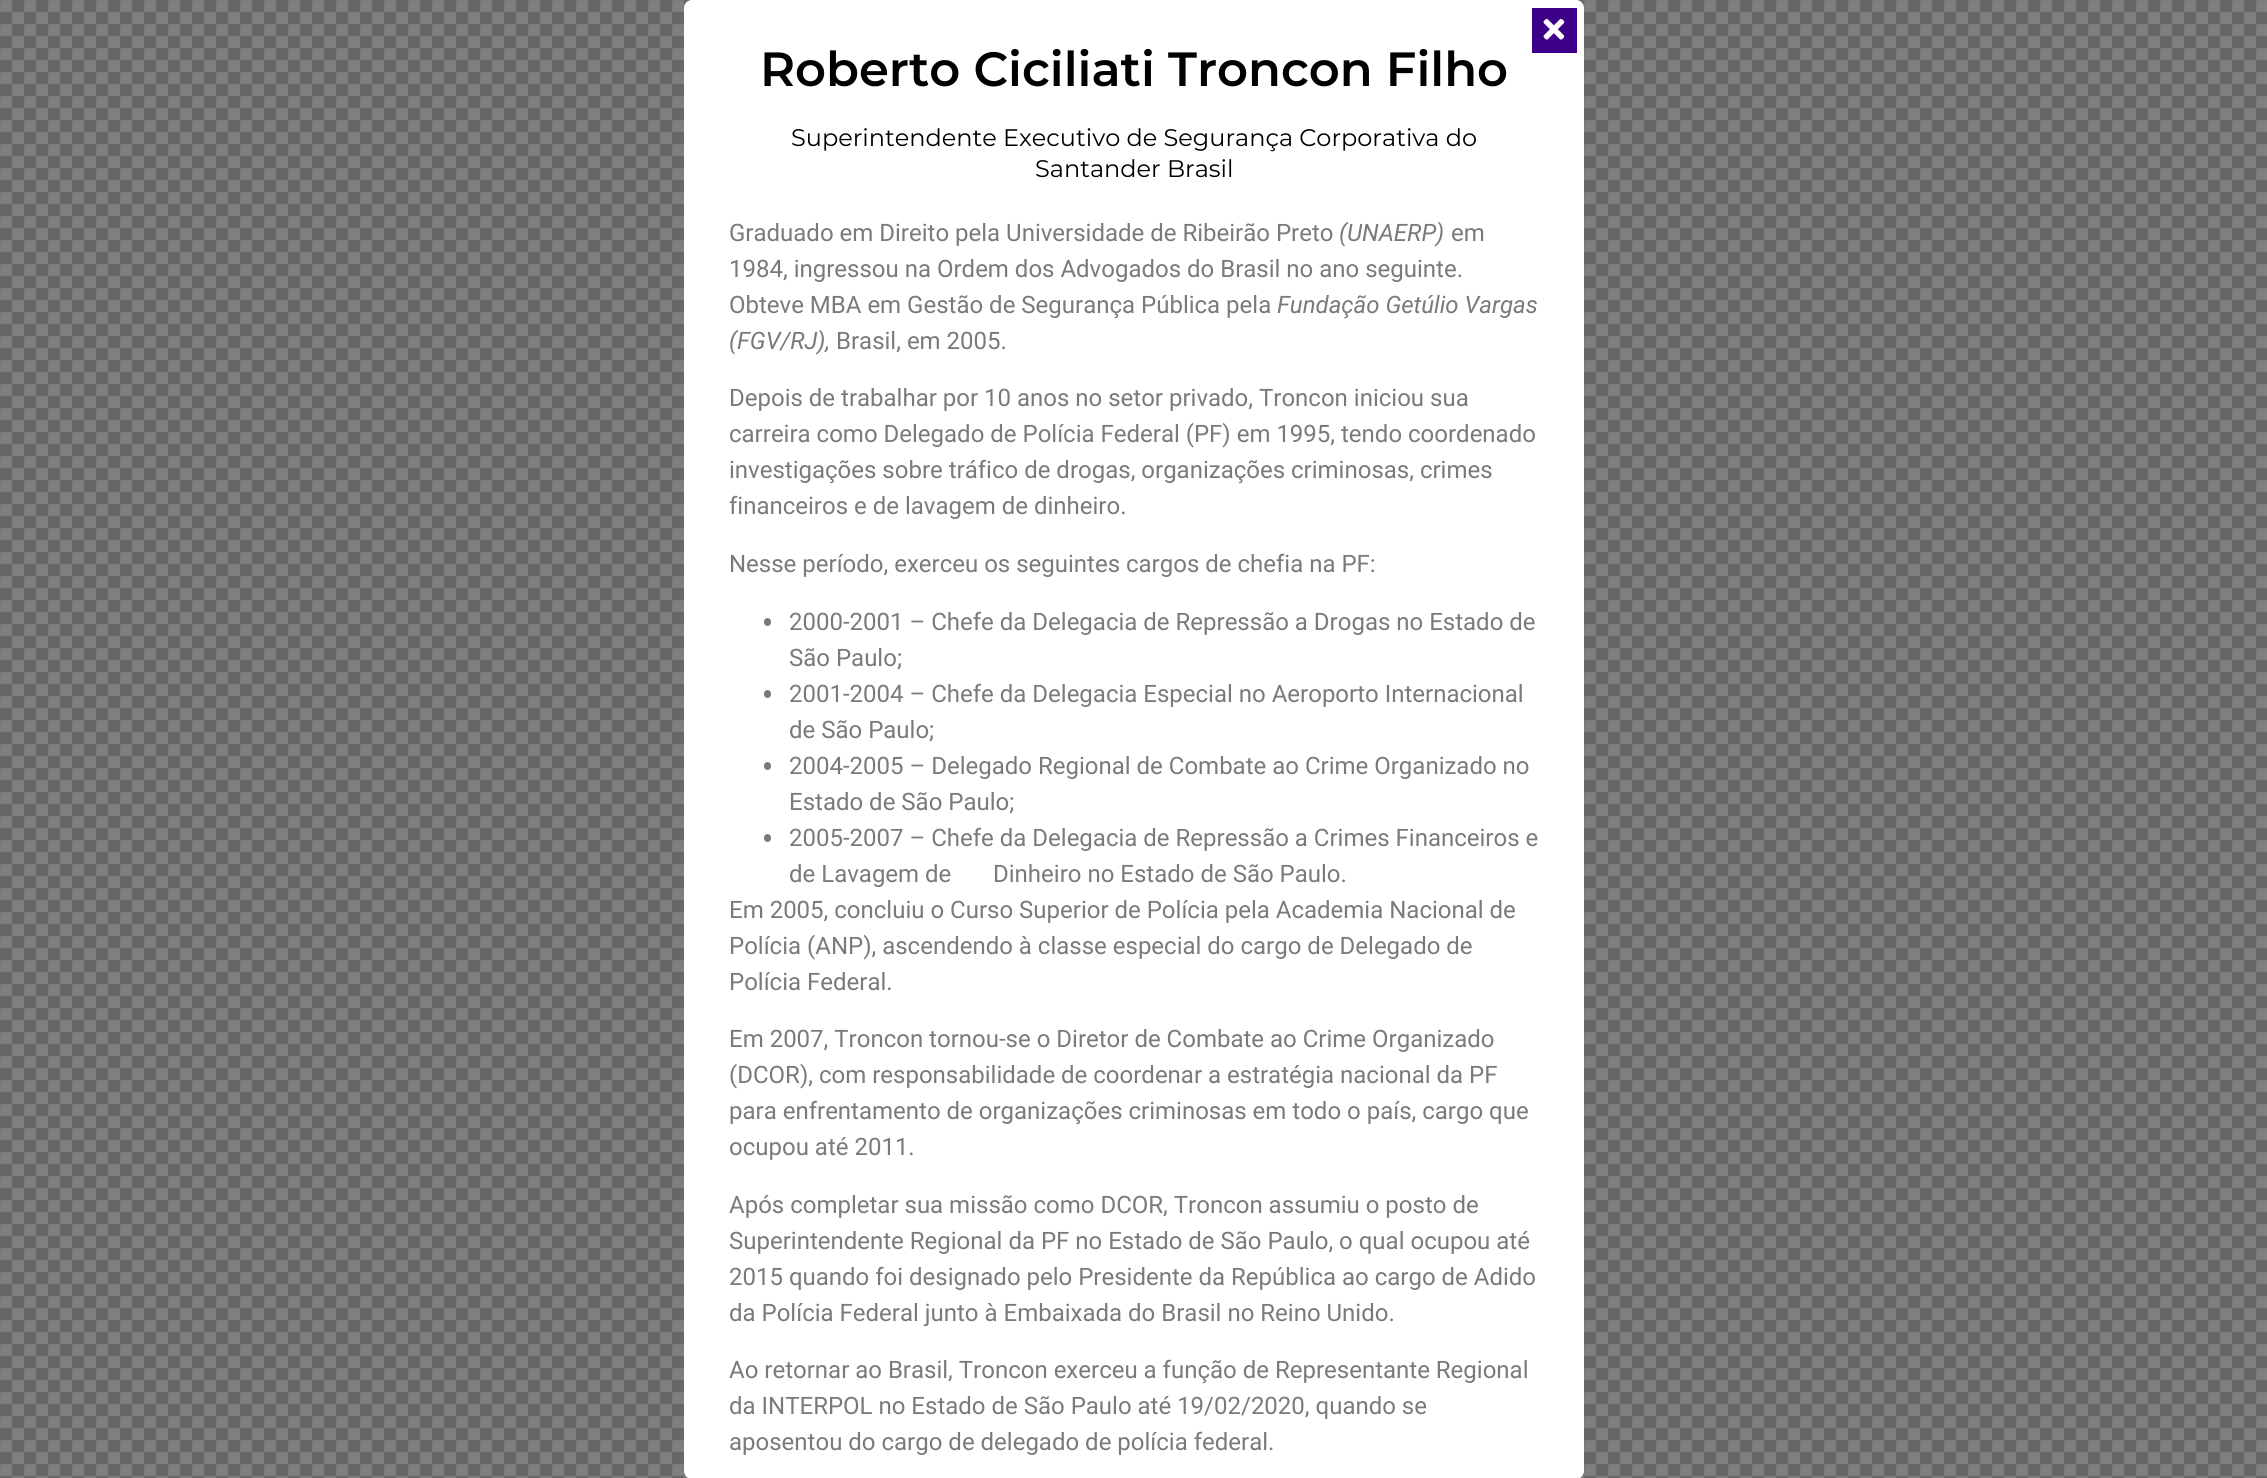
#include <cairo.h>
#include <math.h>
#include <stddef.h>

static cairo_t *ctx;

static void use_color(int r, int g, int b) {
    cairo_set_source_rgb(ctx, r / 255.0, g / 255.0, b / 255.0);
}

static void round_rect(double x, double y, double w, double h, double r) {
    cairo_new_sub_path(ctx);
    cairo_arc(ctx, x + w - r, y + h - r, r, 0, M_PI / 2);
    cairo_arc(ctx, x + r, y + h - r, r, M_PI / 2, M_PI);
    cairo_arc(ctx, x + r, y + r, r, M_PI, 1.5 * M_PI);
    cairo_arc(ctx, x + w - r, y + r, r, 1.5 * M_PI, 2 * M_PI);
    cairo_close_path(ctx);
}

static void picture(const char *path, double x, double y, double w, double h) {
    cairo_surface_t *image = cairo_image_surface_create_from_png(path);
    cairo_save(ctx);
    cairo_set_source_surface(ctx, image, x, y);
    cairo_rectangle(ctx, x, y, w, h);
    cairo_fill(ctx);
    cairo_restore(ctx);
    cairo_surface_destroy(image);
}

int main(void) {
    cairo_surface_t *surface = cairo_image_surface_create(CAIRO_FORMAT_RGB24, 2267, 1478);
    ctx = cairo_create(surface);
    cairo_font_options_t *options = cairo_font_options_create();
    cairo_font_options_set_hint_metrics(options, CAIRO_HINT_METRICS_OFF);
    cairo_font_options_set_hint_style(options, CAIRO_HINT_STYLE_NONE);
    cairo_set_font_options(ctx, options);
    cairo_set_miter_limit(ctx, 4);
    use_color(255, 255, 255);
    cairo_paint(ctx);
    picture("img1.png", 0, 0, 2267, 1478);
    use_color(255, 255, 255);
    round_rect(684, 0, 900, 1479, 8);
    cairo_fill(ctx);
    use_color(62, 0, 137);
    cairo_rectangle(ctx, 1532, 8, 45, 45);
    cairo_fill(ctx);
    picture("img2.png", 1543, 18, 22, 22);
    cairo_select_font_face(ctx, "Montserrat SemiBold", CAIRO_FONT_SLANT_NORMAL, CAIRO_FONT_WEIGHT_NORMAL);
    cairo_set_font_size(ctx, 48);
    use_color(0, 0, 0);
    cairo_move_to(ctx, 760, 86);
    cairo_show_text(ctx, "Roberto Ciciliati Troncon Filho");
    cairo_select_font_face(ctx, "Montserrat", CAIRO_FONT_SLANT_NORMAL, CAIRO_FONT_WEIGHT_NORMAL);
    cairo_set_font_size(ctx, 24);
    cairo_move_to(ctx, 791, 146);
    cairo_show_text(ctx, "Superintendente Executivo de Segurança Corporativa do");
    cairo_move_to(ctx, 1035, 177);
    cairo_show_text(ctx, "Santander Brasil");
    cairo_select_font_face(ctx, "Roboto", CAIRO_FONT_SLANT_NORMAL, CAIRO_FONT_WEIGHT_NORMAL);
    use_color(122, 122, 122);
    cairo_move_to(ctx, 729, 241);
    cairo_show_text(ctx, "Graduado em Direito pela Universidade de Ribeirão Preto");
    cairo_select_font_face(ctx, "Roboto", CAIRO_FONT_SLANT_ITALIC, CAIRO_FONT_WEIGHT_NORMAL);
    cairo_move_to(ctx, 1339, 241);
    cairo_show_text(ctx, "(UNAERP)");
    cairo_select_font_face(ctx, "Roboto", CAIRO_FONT_SLANT_NORMAL, CAIRO_FONT_WEIGHT_NORMAL);
    cairo_move_to(ctx, 1451, 241);
    cairo_show_text(ctx, "em");
    cairo_move_to(ctx, 729, 277);
    cairo_show_text(ctx, "1984, ingressou na Ordem dos Advogados do Brasil no ano seguinte.");
    cairo_move_to(ctx, 729, 313);
    cairo_show_text(ctx, "Obteve MBA em Gestão de Segurança Pública pela");
    cairo_select_font_face(ctx, "Roboto", CAIRO_FONT_SLANT_ITALIC, CAIRO_FONT_WEIGHT_NORMAL);
    cairo_move_to(ctx, 1277, 313);
    cairo_show_text(ctx, "Fundação Getúlio Vargas");
    cairo_move_to(ctx, 729, 349);
    cairo_show_text(ctx, "(FGV/RJ),");
    cairo_select_font_face(ctx, "Roboto", CAIRO_FONT_SLANT_NORMAL, CAIRO_FONT_WEIGHT_NORMAL);
    cairo_move_to(ctx, 836, 349);
    cairo_show_text(ctx, "Brasil, em 2005.");
    cairo_move_to(ctx, 729, 406);
    cairo_show_text(ctx, "Depois de trabalhar por 10 anos no setor privado, Troncon iniciou sua");
    cairo_move_to(ctx, 729, 442);
    cairo_show_text(ctx, "carreira como Delegado de Polícia Federal (PF) em 1995, tendo coordenado");
    cairo_move_to(ctx, 729, 478);
    cairo_show_text(ctx, "investigações sobre tráfico de drogas, organizações criminosas, crimes");
    cairo_move_to(ctx, 729, 514);
    cairo_show_text(ctx, "financeiros e de lavagem de dinheiro.");
    cairo_move_to(ctx, 729, 572);
    cairo_show_text(ctx, "Nesse período, exerceu os seguintes cargos de chefia na PF:");
    round_rect(764, 618, 7, 8, 3.5);
    cairo_fill(ctx);
    cairo_move_to(ctx, 789, 630);
    cairo_show_text(ctx, "2000-2001 – Chefe da Delegacia de Repressão a Drogas no Estado de");
    cairo_move_to(ctx, 789, 666);
    cairo_show_text(ctx, "São Paulo;");
    round_rect(764, 690, 7, 8, 3.5);
    cairo_fill(ctx);
    cairo_move_to(ctx, 789, 702);
    cairo_show_text(ctx, "2001-2004 – Chefe da Delegacia Especial no Aeroporto Internacional");
    cairo_move_to(ctx, 789, 738);
    cairo_show_text(ctx, "de São Paulo;");
    round_rect(764, 762, 7, 8, 3.5);
    cairo_fill(ctx);
    cairo_move_to(ctx, 789, 774);
    cairo_show_text(ctx, "2004-2005 – Delegado Regional de Combate ao Crime Organizado no");
    cairo_move_to(ctx, 789, 810);
    cairo_show_text(ctx, "Estado de São Paulo;");
    round_rect(764, 834, 7, 8, 3.5);
    cairo_fill(ctx);
    cairo_move_to(ctx, 789, 846);
    cairo_show_text(ctx, "2005-2007 – Chefe da Delegacia de Repressão a Crimes Financeiros e");
    cairo_move_to(ctx, 789, 882);
    cairo_show_text(ctx, "de Lavagem de       Dinheiro no Estado de São Paulo.");
    cairo_move_to(ctx, 729, 918);
    cairo_show_text(ctx, "Em 2005, concluiu o Curso Superior de Polícia pela Academia Nacional de");
    cairo_move_to(ctx, 729, 954);
    cairo_show_text(ctx, "Polícia (ANP), ascendendo à classe especial do cargo de Delegado de");
    cairo_move_to(ctx, 729, 990);
    cairo_show_text(ctx, "Polícia Federal.");
    cairo_move_to(ctx, 729, 1047);
    cairo_show_text(ctx, "Em 2007, Troncon tornou-se o Diretor de Combate ao Crime Organizado");
    cairo_move_to(ctx, 729, 1083);
    cairo_show_text(ctx, "(DCOR), com responsabilidade de coordenar a estratégia nacional da PF");
    cairo_move_to(ctx, 729, 1119);
    cairo_show_text(ctx, "para enfrentamento de organizações criminosas em todo o país, cargo que");
    cairo_move_to(ctx, 729, 1155);
    cairo_show_text(ctx, "ocupou até 2011.");
    cairo_move_to(ctx, 729, 1213);
    cairo_show_text(ctx, "Após completar sua missão como DCOR, Troncon assumiu o posto de");
    cairo_move_to(ctx, 729, 1249);
    cairo_show_text(ctx, "Superintendente Regional da PF no Estado de São Paulo, o qual ocupou até");
    cairo_move_to(ctx, 729, 1285);
    cairo_show_text(ctx, "2015 quando foi designado pelo Presidente da República ao cargo de Adido");
    cairo_move_to(ctx, 729, 1321);
    cairo_show_text(ctx, "da Polícia Federal junto à Embaixada do Brasil no Reino Unido.");
    cairo_move_to(ctx, 729, 1378);
    cairo_show_text(ctx, "Ao retornar ao Brasil, Troncon exerceu a função de Representante Regional");
    cairo_move_to(ctx, 729, 1414);
    cairo_show_text(ctx, "da INTERPOL no Estado de São Paulo até 19/02/2020, quando se");
    cairo_move_to(ctx, 729, 1450);
    cairo_show_text(ctx, "aposentou do cargo de delegado de polícia federal.");
    cairo_surface_write_to_png(surface, "result.png");
    cairo_font_options_destroy(options);
    cairo_destroy(ctx);
    cairo_surface_destroy(surface);
    return 0;
}
